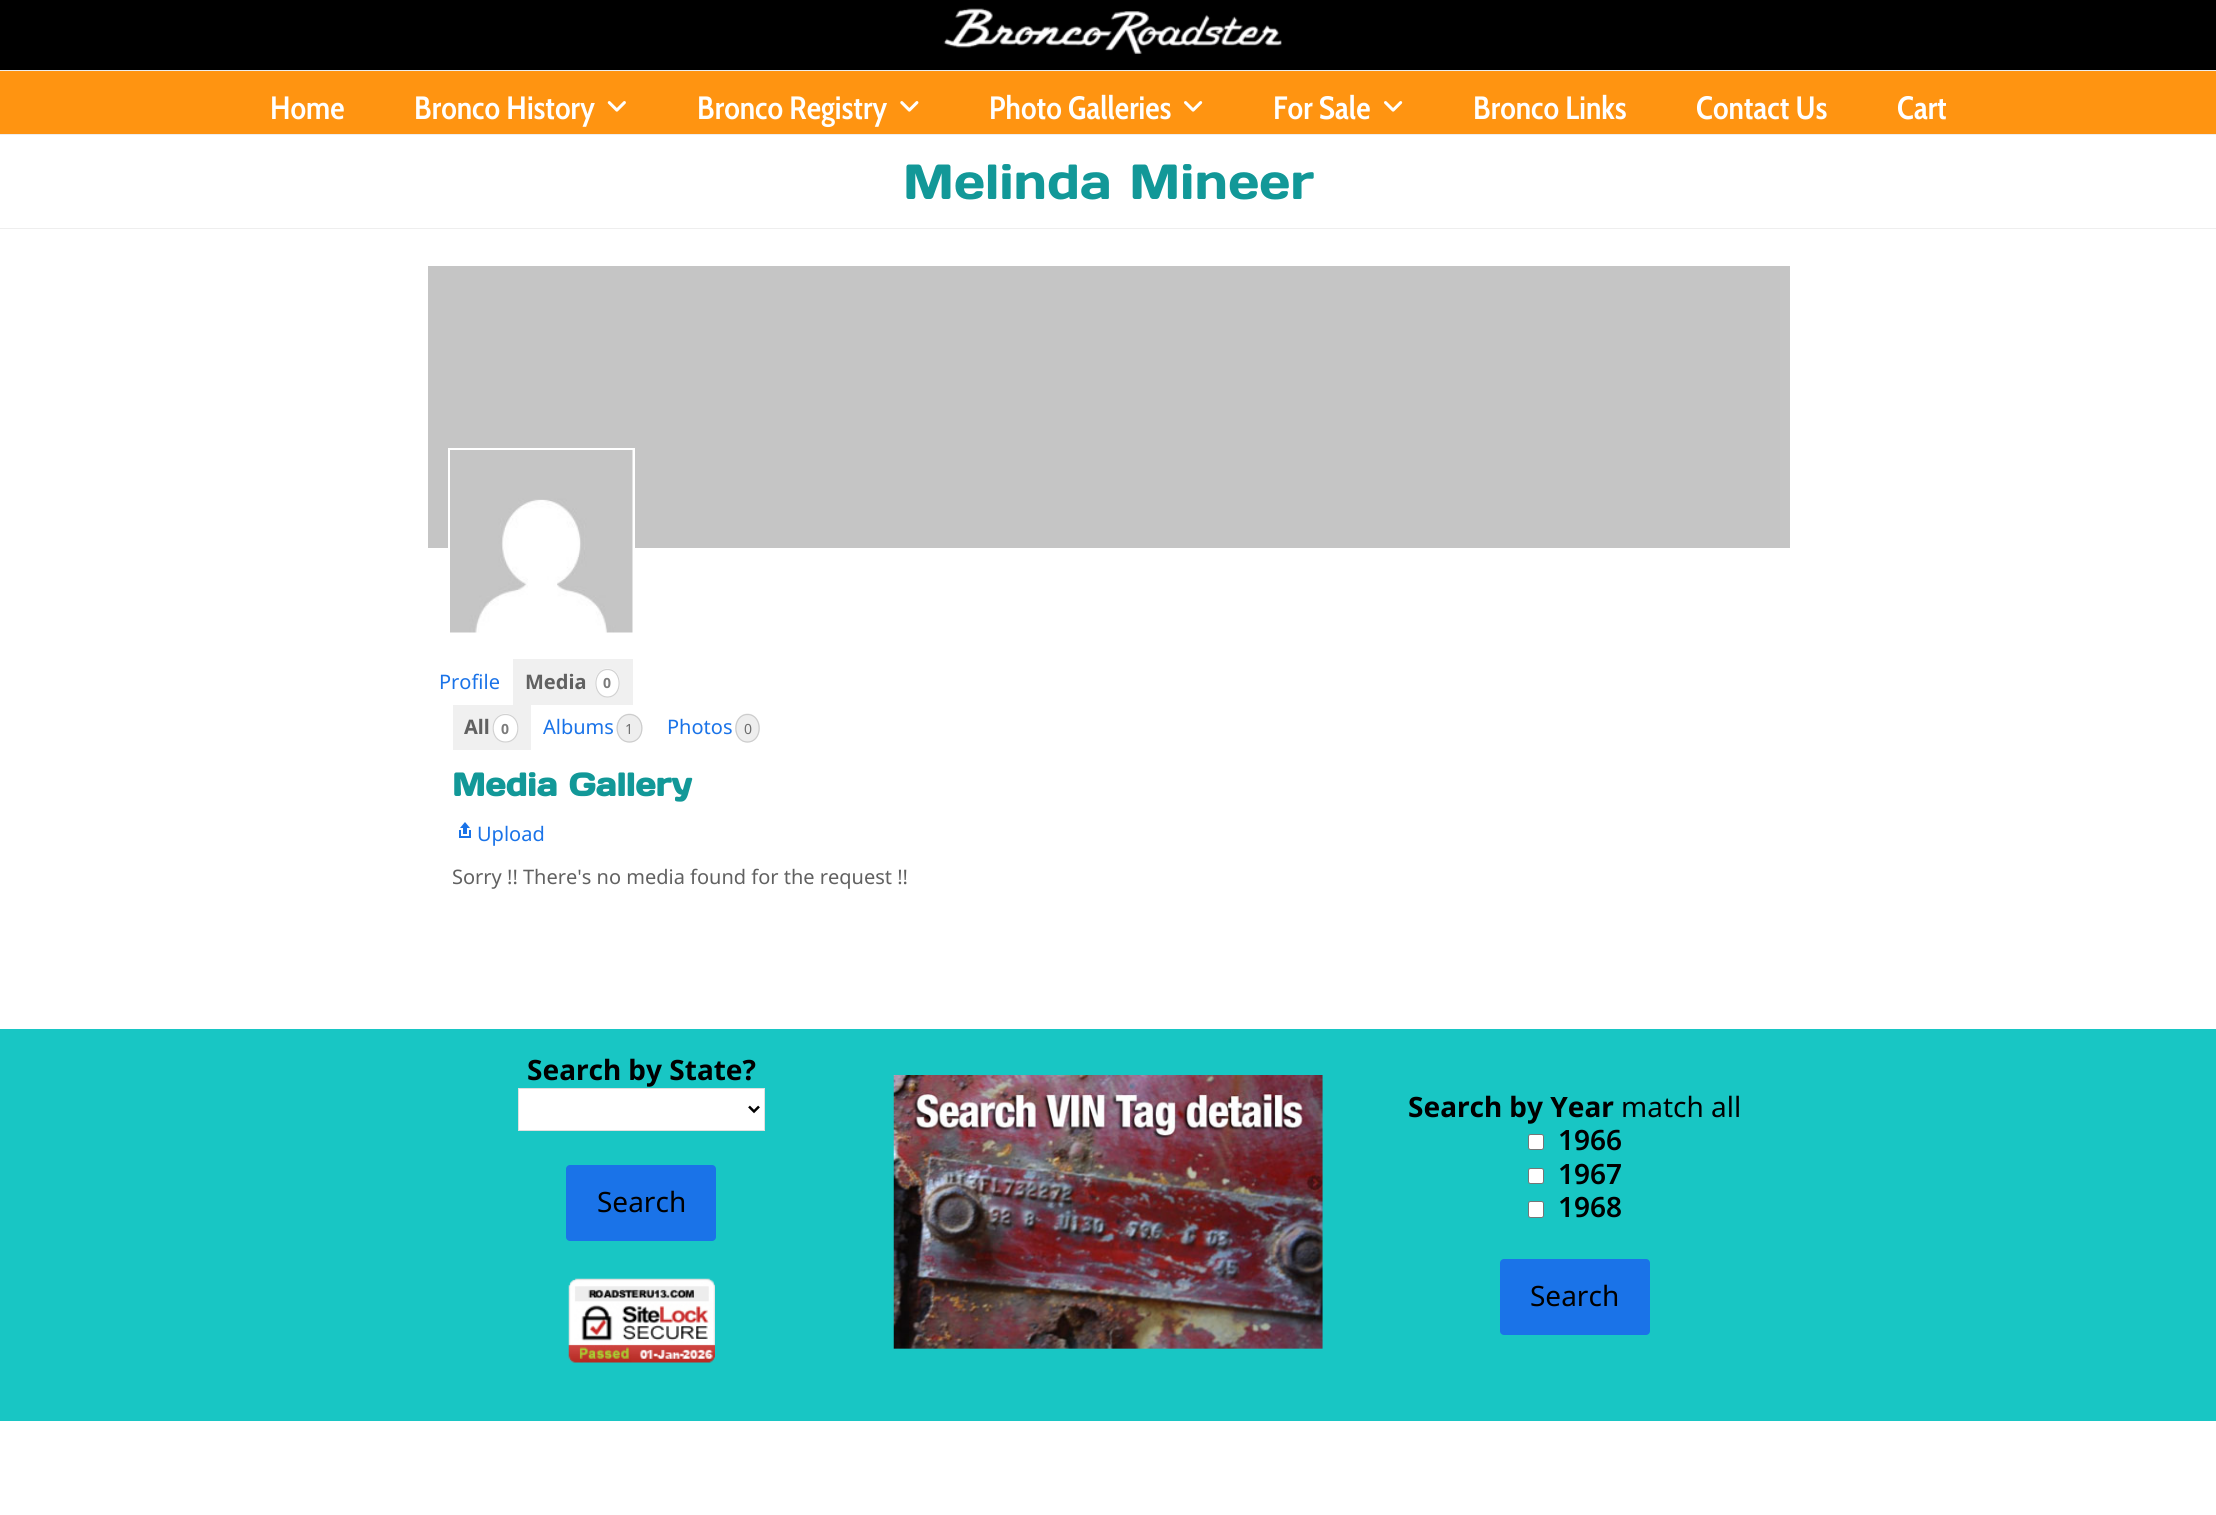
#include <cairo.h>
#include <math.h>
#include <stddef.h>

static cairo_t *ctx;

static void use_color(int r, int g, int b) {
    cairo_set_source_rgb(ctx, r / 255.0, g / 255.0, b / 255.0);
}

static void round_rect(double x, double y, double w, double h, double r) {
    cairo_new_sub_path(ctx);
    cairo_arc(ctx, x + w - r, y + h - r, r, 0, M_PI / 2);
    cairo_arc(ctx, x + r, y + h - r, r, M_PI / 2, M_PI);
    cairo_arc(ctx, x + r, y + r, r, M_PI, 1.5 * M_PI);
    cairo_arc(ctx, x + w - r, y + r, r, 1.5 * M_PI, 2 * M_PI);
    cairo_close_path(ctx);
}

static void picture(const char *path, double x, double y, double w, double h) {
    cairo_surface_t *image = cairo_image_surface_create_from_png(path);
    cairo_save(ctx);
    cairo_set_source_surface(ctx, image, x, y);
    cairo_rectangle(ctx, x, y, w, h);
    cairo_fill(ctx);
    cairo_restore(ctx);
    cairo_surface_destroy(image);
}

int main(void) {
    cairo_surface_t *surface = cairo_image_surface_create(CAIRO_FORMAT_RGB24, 2216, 1515);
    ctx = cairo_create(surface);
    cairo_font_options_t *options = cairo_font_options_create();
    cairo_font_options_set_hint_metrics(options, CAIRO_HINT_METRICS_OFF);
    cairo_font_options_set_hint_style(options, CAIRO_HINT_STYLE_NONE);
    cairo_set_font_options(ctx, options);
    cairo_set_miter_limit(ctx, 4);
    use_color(255, 255, 255);
    cairo_paint(ctx);
    use_color(0, 0, 0);
    cairo_rectangle(ctx, 0, 0, 2216, 70);
    cairo_fill(ctx);
    picture("img1.png", 943, 8, 339, 46);
    use_color(255, 148, 17);
    cairo_rectangle(ctx, 0, 71, 2216, 63);
    cairo_fill(ctx);
    use_color(238, 238, 238);
    cairo_rectangle(ctx, 0, 70, 2216, 1);
    cairo_fill(ctx);
    cairo_select_font_face(ctx, "Cabin Condensed SemiBold", CAIRO_FONT_SLANT_NORMAL, CAIRO_FONT_WEIGHT_NORMAL);
    cairo_set_font_size(ctx, 32.25);
    use_color(255, 255, 255);
    cairo_move_to(ctx, 270, 119);
    cairo_show_text(ctx, "Home");
    cairo_move_to(ctx, 414, 119);
    cairo_show_text(ctx, "Bronco History");
    picture("img2.png", 607, 101, 19, 11);
    cairo_move_to(ctx, 697, 119);
    cairo_show_text(ctx, "Bronco Registry");
    picture("img3.png", 900, 101, 19, 11);
    cairo_move_to(ctx, 989, 119);
    cairo_show_text(ctx, "Photo Galleries");
    picture("img4.png", 1184, 101, 19, 11);
    cairo_move_to(ctx, 1273, 119);
    cairo_show_text(ctx, "For Sale");
    picture("img4.png", 1384, 101, 19, 11);
    cairo_move_to(ctx, 1473, 119);
    cairo_show_text(ctx, "Bronco Links");
    cairo_move_to(ctx, 1696, 119);
    cairo_show_text(ctx, "Contact Us");
    cairo_move_to(ctx, 1897, 119);
    cairo_show_text(ctx, "Cart");
    use_color(238, 238, 238);
    cairo_rectangle(ctx, 0, 134, 2216, 1);
    cairo_fill(ctx);
    cairo_rectangle(ctx, 0, 228, 2216, 1);
    cairo_fill(ctx);
    cairo_select_font_face(ctx, "Days One", CAIRO_FONT_SLANT_NORMAL, CAIRO_FONT_WEIGHT_NORMAL);
    cairo_set_font_size(ctx, 49.25);
    use_color(18, 152, 152);
    cairo_move_to(ctx, 903, 199);
    cairo_show_text(ctx, "Melinda Mineer");
    use_color(197, 197, 197);
    cairo_rectangle(ctx, 428, 266, 1362, 282);
    cairo_fill(ctx);
    cairo_rectangle(ctx, 449.5, 449.5, 184, 184);
    use_color(255, 255, 255);
    cairo_set_line_width(ctx, 3);
    cairo_stroke(ctx);
    picture("img5.png", 450, 450, 183, 183);
    cairo_select_font_face(ctx, "Noto Sans", CAIRO_FONT_SLANT_NORMAL, CAIRO_FONT_WEIGHT_NORMAL);
    cairo_set_font_size(ctx, 20);
    use_color(26, 115, 232);
    cairo_move_to(ctx, 439, 689);
    cairo_show_text(ctx, "Profile");
    use_color(240, 240, 240);
    cairo_rectangle(ctx, 513, 659, 120, 46);
    cairo_fill(ctx);
    cairo_select_font_face(ctx, "Noto Sans", CAIRO_FONT_SLANT_NORMAL, CAIRO_FONT_WEIGHT_BOLD);
    use_color(97, 97, 97);
    cairo_move_to(ctx, 525, 689);
    cairo_show_text(ctx, "Media");
    use_color(255, 255, 255);
    cairo_new_path(ctx);
    cairo_move_to(ctx, 607.5, 668.5);
    cairo_curve_to(ctx, 614.5, 668.5, 620, 675, 620, 683);
    cairo_curve_to(ctx, 620, 691, 614.5, 697.5, 607.5, 697.5);
    cairo_curve_to(ctx, 600.5, 697.5, 595, 691, 595, 683);
    cairo_curve_to(ctx, 595, 675, 600.5, 668.5, 607.5, 668.5);
    cairo_close_path(ctx);
    cairo_fill(ctx);
    cairo_new_path(ctx);
    cairo_move_to(ctx, 607.5, 669.5);
    cairo_curve_to(ctx, 623, 669.5, 623, 697, 607.5, 697);
    cairo_curve_to(ctx, 592, 697, 592, 669.5, 607.5, 669.5);
    cairo_close_path(ctx);
    use_color(209, 209, 209);
    cairo_set_line_width(ctx, 1.2);
    cairo_stroke(ctx);
    cairo_set_font_size(ctx, 14);
    use_color(123, 123, 123);
    cairo_move_to(ctx, 603, 688);
    cairo_show_text(ctx, "0");
    use_color(240, 240, 240);
    cairo_rectangle(ctx, 453, 705, 78, 45);
    cairo_fill(ctx);
    cairo_set_font_size(ctx, 20);
    use_color(97, 97, 97);
    cairo_move_to(ctx, 464, 734);
    cairo_show_text(ctx, "All");
    use_color(255, 255, 255);
    cairo_new_path(ctx);
    cairo_move_to(ctx, 505.5, 713.5);
    cairo_curve_to(ctx, 512.5, 713.5, 518.5, 720, 518.5, 728);
    cairo_curve_to(ctx, 518.5, 736, 512.5, 742.5, 505.5, 742.5);
    cairo_curve_to(ctx, 498.5, 742.5, 492.5, 736, 492.5, 728);
    cairo_curve_to(ctx, 492.5, 720, 498.5, 713.5, 505.5, 713.5);
    cairo_close_path(ctx);
    cairo_fill(ctx);
    cairo_new_path(ctx);
    cairo_move_to(ctx, 505.5, 714.5);
    cairo_curve_to(ctx, 522, 714.5, 522, 742, 505.5, 742);
    cairo_curve_to(ctx, 489, 742, 489, 714.5, 505.5, 714.5);
    cairo_close_path(ctx);
    use_color(209, 209, 209);
    cairo_stroke(ctx);
    cairo_set_font_size(ctx, 14);
    use_color(123, 123, 123);
    cairo_move_to(ctx, 501, 734);
    cairo_show_text(ctx, "0");
    cairo_select_font_face(ctx, "Noto Sans", CAIRO_FONT_SLANT_NORMAL, CAIRO_FONT_WEIGHT_NORMAL);
    cairo_set_font_size(ctx, 20);
    use_color(26, 115, 232);
    cairo_move_to(ctx, 543, 734);
    cairo_show_text(ctx, "Albums");
    use_color(238, 238, 238);
    cairo_new_path(ctx);
    cairo_move_to(ctx, 629.5, 713.5);
    cairo_curve_to(ctx, 636.5, 713.5, 642.5, 720, 642.5, 728);
    cairo_curve_to(ctx, 642.5, 736, 636.5, 742.5, 629.5, 742.5);
    cairo_curve_to(ctx, 622.5, 742.5, 616.5, 736, 616.5, 728);
    cairo_curve_to(ctx, 616.5, 720, 622.5, 713.5, 629.5, 713.5);
    cairo_close_path(ctx);
    cairo_fill(ctx);
    cairo_new_path(ctx);
    cairo_move_to(ctx, 629.5, 714.5);
    cairo_curve_to(ctx, 646, 714.5, 646, 742, 629.5, 742);
    cairo_curve_to(ctx, 613, 742, 613, 714.5, 629.5, 714.5);
    cairo_close_path(ctx);
    use_color(204, 204, 204);
    cairo_stroke(ctx);
    cairo_set_font_size(ctx, 14);
    use_color(108, 108, 108);
    cairo_move_to(ctx, 625, 734);
    cairo_show_text(ctx, "1");
    cairo_set_font_size(ctx, 20);
    use_color(26, 115, 232);
    cairo_move_to(ctx, 667, 734);
    cairo_show_text(ctx, "Photos");
    use_color(238, 238, 238);
    cairo_new_path(ctx);
    cairo_move_to(ctx, 747.5, 713.5);
    cairo_curve_to(ctx, 754.5, 713.5, 760, 720, 760, 728);
    cairo_curve_to(ctx, 760, 736, 754.5, 742.5, 747.5, 742.5);
    cairo_curve_to(ctx, 740.5, 742.5, 735, 736, 735, 728);
    cairo_curve_to(ctx, 735, 720, 740.5, 713.5, 747.5, 713.5);
    cairo_close_path(ctx);
    cairo_fill(ctx);
    cairo_new_path(ctx);
    cairo_move_to(ctx, 747.5, 714.5);
    cairo_curve_to(ctx, 763, 714.5, 763, 742, 747.5, 742);
    cairo_curve_to(ctx, 732, 742, 732, 714.5, 747.5, 714.5);
    cairo_close_path(ctx);
    use_color(204, 204, 204);
    cairo_stroke(ctx);
    cairo_set_font_size(ctx, 14);
    use_color(108, 108, 108);
    cairo_move_to(ctx, 744, 734);
    cairo_show_text(ctx, "0");
    cairo_select_font_face(ctx, "Days One", CAIRO_FONT_SLANT_NORMAL, CAIRO_FONT_WEIGHT_BOLD);
    cairo_set_font_size(ctx, 32.25);
    use_color(18, 152, 152);
    cairo_move_to(ctx, 452, 796);
    cairo_show_text(ctx, "Media Gallery");
    picture("img6.png", 459, 822, 12, 16);
    cairo_select_font_face(ctx, "Noto Sans", CAIRO_FONT_SLANT_NORMAL, CAIRO_FONT_WEIGHT_NORMAL);
    cairo_set_font_size(ctx, 20);
    use_color(26, 115, 232);
    cairo_move_to(ctx, 477, 841);
    cairo_show_text(ctx, "Upload");
    use_color(97, 97, 97);
    cairo_move_to(ctx, 452, 884);
    cairo_show_text(ctx, "Sorry !! There's no media found for the request !!");
    use_color(24, 198, 196);
    cairo_rectangle(ctx, 0, 1029, 2216, 392);
    cairo_fill(ctx);
    cairo_select_font_face(ctx, "Noto Sans", CAIRO_FONT_SLANT_NORMAL, CAIRO_FONT_WEIGHT_BOLD);
    cairo_set_font_size(ctx, 28);
    use_color(0, 0, 0);
    cairo_move_to(ctx, 527, 1080);
    cairo_show_text(ctx, "Search by State?");
    use_color(255, 255, 255);
    cairo_rectangle(ctx, 518.5, 1088.5, 246, 42);
    cairo_fill_preserve(ctx);
    use_color(224, 224, 224);
    cairo_set_line_width(ctx, 1);
    cairo_stroke(ctx);
    cairo_new_path(ctx);
    cairo_move_to(ctx, 749, 1106.5);
    cairo_line_to(ctx, 754, 1111.5);
    cairo_line_to(ctx, 759, 1106.5);
    use_color(0, 0, 0);
    cairo_set_line_width(ctx, 2.5);
    cairo_stroke(ctx);
    use_color(26, 115, 232);
    round_rect(566, 1165, 150, 76, 4);
    cairo_fill(ctx);
    cairo_select_font_face(ctx, "Noto Sans", CAIRO_FONT_SLANT_NORMAL, CAIRO_FONT_WEIGHT_NORMAL);
    use_color(0, 0, 0);
    cairo_move_to(ctx, 597, 1212);
    cairo_show_text(ctx, "Search");
    picture("img7.png", 568, 1278, 147, 85);
    picture("img8.png", 893, 1075, 430, 274);
    cairo_select_font_face(ctx, "Noto Sans", CAIRO_FONT_SLANT_NORMAL, CAIRO_FONT_WEIGHT_BOLD);
    cairo_move_to(ctx, 1408, 1117);
    cairo_show_text(ctx, "Search by Year");
    cairo_select_font_face(ctx, "Noto Sans", CAIRO_FONT_SLANT_NORMAL, CAIRO_FONT_WEIGHT_NORMAL);
    cairo_move_to(ctx, 1621, 1117);
    cairo_show_text(ctx, "match all");
    use_color(255, 255, 255);
    round_rect(1528.5, 1134.5, 15, 15, 2);
    cairo_fill_preserve(ctx);
    use_color(118, 118, 118);
    cairo_set_line_width(ctx, 1);
    cairo_stroke(ctx);
    cairo_select_font_face(ctx, "Noto Sans SemiBold", CAIRO_FONT_SLANT_NORMAL, CAIRO_FONT_WEIGHT_NORMAL);
    use_color(0, 0, 0);
    cairo_move_to(ctx, 1558, 1150);
    cairo_show_text(ctx, "1966");
    use_color(255, 255, 255);
    round_rect(1528.5, 1168.5, 15, 15, 2);
    cairo_fill_preserve(ctx);
    use_color(118, 118, 118);
    cairo_stroke(ctx);
    use_color(0, 0, 0);
    cairo_move_to(ctx, 1558, 1184);
    cairo_show_text(ctx, "1967");
    use_color(255, 255, 255);
    round_rect(1528.5, 1201.5, 15, 16, 2);
    cairo_fill_preserve(ctx);
    use_color(118, 118, 118);
    cairo_stroke(ctx);
    use_color(0, 0, 0);
    cairo_move_to(ctx, 1558, 1217);
    cairo_show_text(ctx, "1968");
    use_color(26, 115, 232);
    round_rect(1500, 1259, 150, 76, 4);
    cairo_fill(ctx);
    cairo_select_font_face(ctx, "Noto Sans", CAIRO_FONT_SLANT_NORMAL, CAIRO_FONT_WEIGHT_NORMAL);
    use_color(0, 0, 0);
    cairo_move_to(ctx, 1530, 1306);
    cairo_show_text(ctx, "Search");
    cairo_surface_write_to_png(surface, "result.png");
    cairo_font_options_destroy(options);
    cairo_destroy(ctx);
    cairo_surface_destroy(surface);
    return 0;
}
